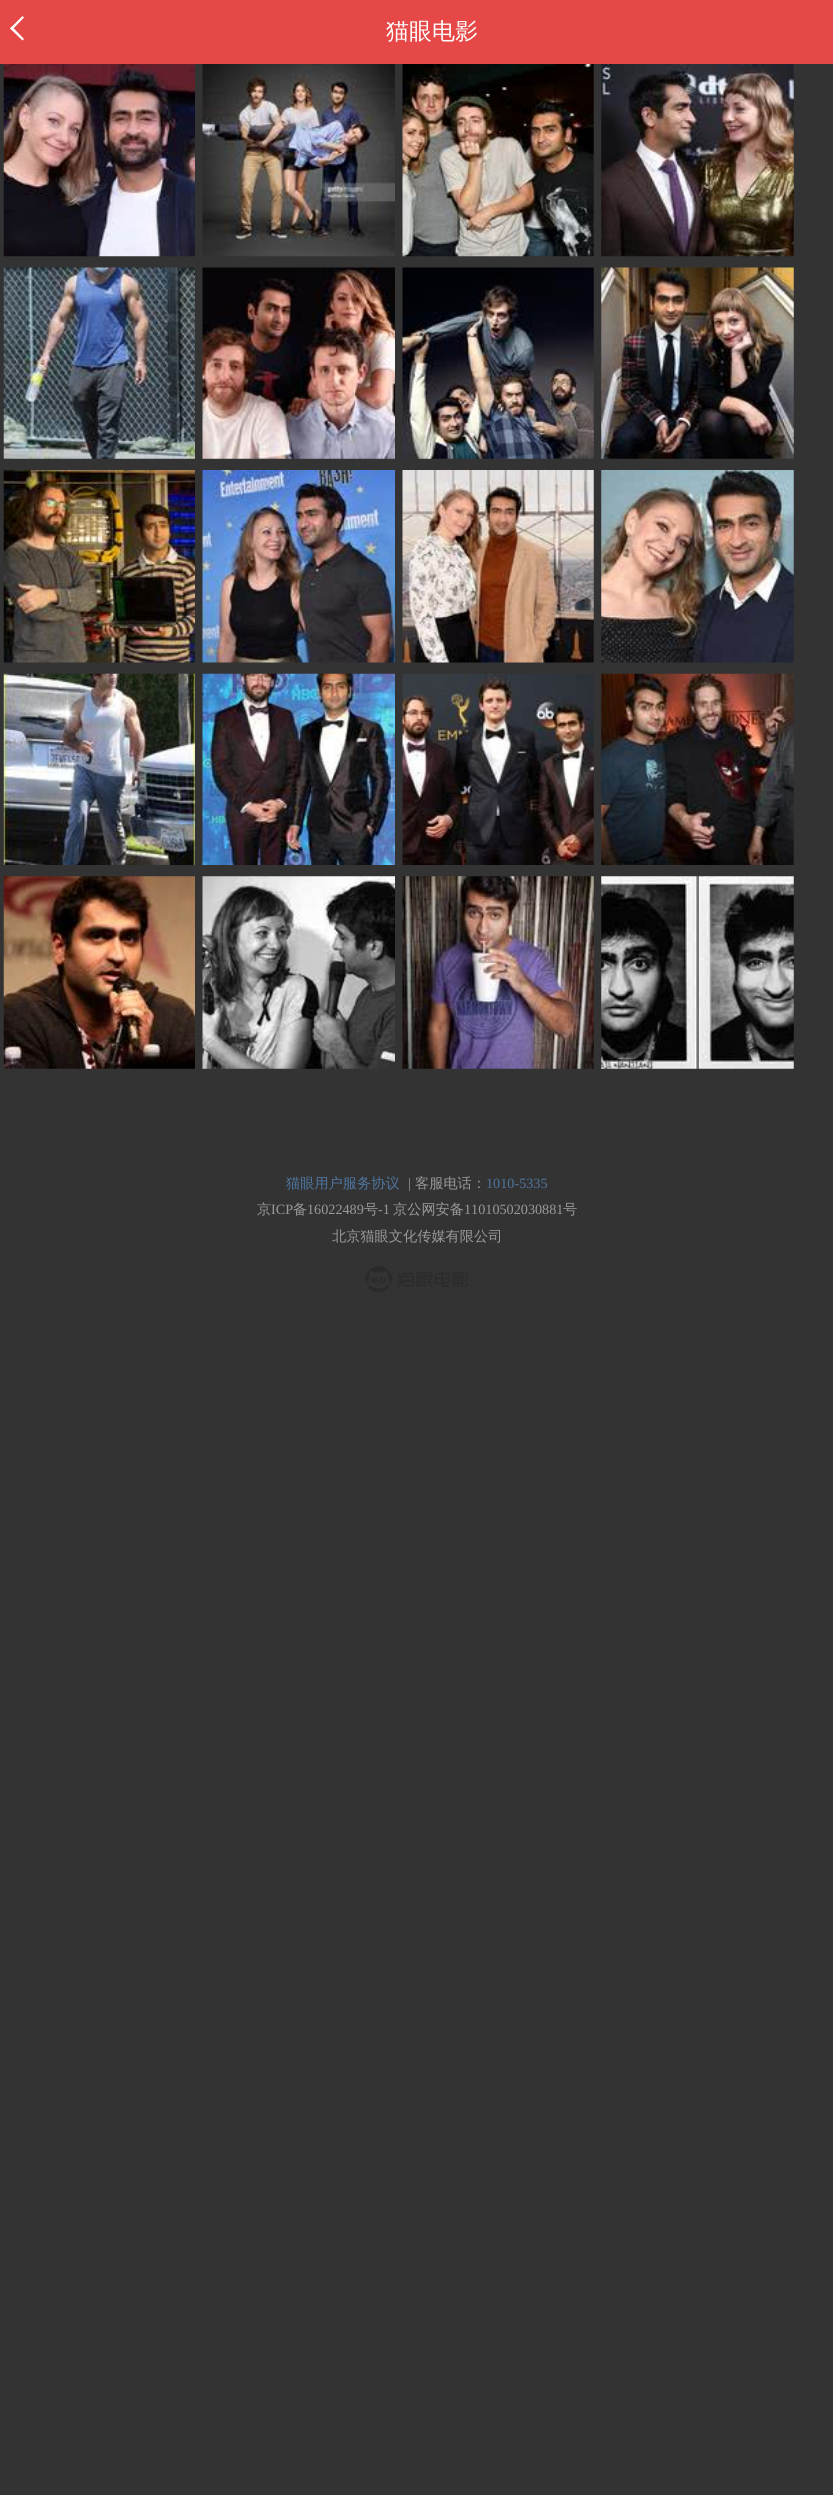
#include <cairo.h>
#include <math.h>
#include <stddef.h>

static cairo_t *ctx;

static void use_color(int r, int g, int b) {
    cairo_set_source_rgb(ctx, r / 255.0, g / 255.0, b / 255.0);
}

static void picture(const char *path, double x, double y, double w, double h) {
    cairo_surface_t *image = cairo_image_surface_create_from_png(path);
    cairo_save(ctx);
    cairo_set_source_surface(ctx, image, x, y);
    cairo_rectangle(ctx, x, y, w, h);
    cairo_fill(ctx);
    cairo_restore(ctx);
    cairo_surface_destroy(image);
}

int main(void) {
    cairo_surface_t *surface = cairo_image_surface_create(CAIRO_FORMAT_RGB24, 833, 2495);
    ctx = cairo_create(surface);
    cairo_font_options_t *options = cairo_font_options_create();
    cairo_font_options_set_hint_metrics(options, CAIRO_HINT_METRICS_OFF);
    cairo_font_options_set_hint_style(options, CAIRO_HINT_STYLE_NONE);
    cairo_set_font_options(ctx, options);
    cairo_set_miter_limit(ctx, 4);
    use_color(51, 51, 51);
    cairo_paint(ctx);
    use_color(229, 72, 71);
    cairo_rectangle(ctx, 0, 0, 833, 64);
    cairo_fill(ctx);
    use_color(255, 255, 255);
    cairo_new_path(ctx);
    cairo_move_to(ctx, 12, 26.5);
    cairo_line_to(ctx, 24, 39);
    cairo_line_to(ctx, 22.5, 40.5);
    cairo_line_to(ctx, 10, 28.5);
    cairo_close_path(ctx);
    cairo_fill(ctx);
    cairo_new_path(ctx);
    cairo_move_to(ctx, 22.5, 16);
    cairo_line_to(ctx, 24, 17.5);
    cairo_line_to(ctx, 12, 30);
    cairo_line_to(ctx, 10, 28.5);
    cairo_close_path(ctx);
    cairo_fill(ctx);
    cairo_select_font_face(ctx, "WenQuanYi Zen Hei Medium", CAIRO_FONT_SLANT_NORMAL, CAIRO_FONT_WEIGHT_NORMAL);
    cairo_set_font_size(ctx, 23);
    cairo_move_to(ctx, 386, 39);
    cairo_show_text(ctx, "猫眼电影");
    picture("img1.png", 3, 64, 192, 193);
    picture("img2.png", 202, 64, 193, 193);
    picture("img3.png", 402, 64, 192, 193);
    picture("img4.png", 601, 64, 193, 193);
    picture("img5.png", 3, 267, 192, 192);
    picture("img6.png", 202, 267, 193, 192);
    picture("img7.png", 402, 267, 192, 192);
    picture("img8.png", 601, 267, 193, 192);
    picture("img9.png", 3, 470, 192, 193);
    picture("img10.png", 202, 470, 193, 193);
    picture("img11.png", 402, 470, 192, 193);
    picture("img12.png", 601, 470, 193, 193);
    picture("img13.png", 3, 673, 192, 192);
    picture("img14.png", 202, 673, 193, 192);
    picture("img15.png", 402, 673, 192, 192);
    picture("img16.png", 601, 673, 193, 192);
    picture("img17.png", 3, 876, 192, 193);
    picture("img18.png", 202, 876, 193, 193);
    picture("img19.png", 402, 876, 192, 193);
    picture("img20.png", 601, 876, 193, 193);
    cairo_set_font_size(ctx, 14.2);
    use_color(78, 117, 158);
    cairo_move_to(ctx, 286, 1188);
    cairo_show_text(ctx, "猫眼用户服务协议");
    cairo_select_font_face(ctx, "Liberation Serif", CAIRO_FONT_SLANT_NORMAL, CAIRO_FONT_WEIGHT_NORMAL);
    use_color(153, 153, 153);
    cairo_move_to(ctx, 408, 1188);
    cairo_show_text(ctx, "|");
    cairo_select_font_face(ctx, "WenQuanYi Zen Hei Medium", CAIRO_FONT_SLANT_NORMAL, CAIRO_FONT_WEIGHT_NORMAL);
    cairo_move_to(ctx, 415, 1188);
    cairo_show_text(ctx, "客服电话：");
    cairo_select_font_face(ctx, "Liberation Serif", CAIRO_FONT_SLANT_NORMAL, CAIRO_FONT_WEIGHT_NORMAL);
    use_color(78, 117, 158);
    cairo_move_to(ctx, 486, 1188);
    cairo_show_text(ctx, "1010-5335");
    cairo_select_font_face(ctx, "WenQuanYi Zen Hei Medium", CAIRO_FONT_SLANT_NORMAL, CAIRO_FONT_WEIGHT_NORMAL);
    use_color(153, 153, 153);
    cairo_move_to(ctx, 257, 1214);
    cairo_show_text(ctx, "京");
    cairo_select_font_face(ctx, "Liberation Serif", CAIRO_FONT_SLANT_NORMAL, CAIRO_FONT_WEIGHT_NORMAL);
    cairo_move_to(ctx, 271, 1214);
    cairo_show_text(ctx, "ICP");
    cairo_select_font_face(ctx, "WenQuanYi Zen Hei Medium", CAIRO_FONT_SLANT_NORMAL, CAIRO_FONT_WEIGHT_NORMAL);
    cairo_move_to(ctx, 293, 1214);
    cairo_show_text(ctx, "备");
    cairo_select_font_face(ctx, "Liberation Serif", CAIRO_FONT_SLANT_NORMAL, CAIRO_FONT_WEIGHT_NORMAL);
    cairo_move_to(ctx, 307, 1214);
    cairo_show_text(ctx, "16022489");
    cairo_select_font_face(ctx, "WenQuanYi Zen Hei Medium", CAIRO_FONT_SLANT_NORMAL, CAIRO_FONT_WEIGHT_NORMAL);
    cairo_move_to(ctx, 364, 1214);
    cairo_show_text(ctx, "号");
    cairo_select_font_face(ctx, "Liberation Serif", CAIRO_FONT_SLANT_NORMAL, CAIRO_FONT_WEIGHT_NORMAL);
    cairo_move_to(ctx, 378, 1214);
    cairo_show_text(ctx, "-1");
    cairo_select_font_face(ctx, "WenQuanYi Zen Hei Medium", CAIRO_FONT_SLANT_NORMAL, CAIRO_FONT_WEIGHT_NORMAL);
    cairo_move_to(ctx, 393, 1214);
    cairo_show_text(ctx, "京公网安备");
    cairo_select_font_face(ctx, "Liberation Serif", CAIRO_FONT_SLANT_NORMAL, CAIRO_FONT_WEIGHT_NORMAL);
    cairo_move_to(ctx, 464, 1214);
    cairo_show_text(ctx, "11010502030881");
    cairo_select_font_face(ctx, "WenQuanYi Zen Hei Medium", CAIRO_FONT_SLANT_NORMAL, CAIRO_FONT_WEIGHT_NORMAL);
    cairo_move_to(ctx, 563, 1214);
    cairo_show_text(ctx, "号");
    cairo_move_to(ctx, 332, 1241);
    cairo_show_text(ctx, "北京猫眼文化传媒有限公司");
    picture("img21.png", 365, 1266, 103, 26);
    cairo_surface_write_to_png(surface, "result.png");
    cairo_font_options_destroy(options);
    cairo_destroy(ctx);
    cairo_surface_destroy(surface);
    return 0;
}
